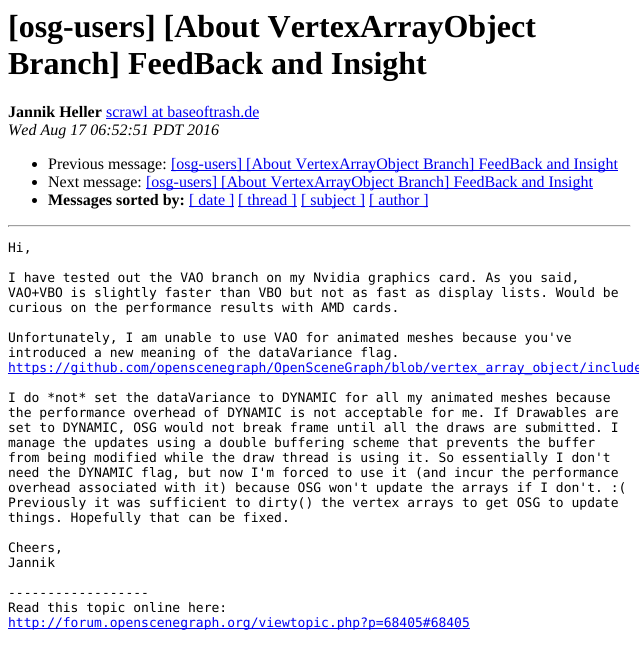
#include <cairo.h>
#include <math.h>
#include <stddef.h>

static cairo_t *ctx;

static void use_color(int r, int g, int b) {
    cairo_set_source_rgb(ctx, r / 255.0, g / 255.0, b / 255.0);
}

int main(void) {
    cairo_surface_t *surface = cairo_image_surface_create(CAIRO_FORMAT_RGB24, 639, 659);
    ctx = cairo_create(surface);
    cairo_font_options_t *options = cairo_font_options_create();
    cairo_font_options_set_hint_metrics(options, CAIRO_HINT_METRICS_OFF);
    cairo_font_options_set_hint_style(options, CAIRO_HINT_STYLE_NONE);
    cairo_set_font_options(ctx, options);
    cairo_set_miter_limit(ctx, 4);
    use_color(255, 255, 255);
    cairo_paint(ctx);
    cairo_select_font_face(ctx, "Liberation Serif", CAIRO_FONT_SLANT_NORMAL, CAIRO_FONT_WEIGHT_BOLD);
    cairo_set_font_size(ctx, 32);
    use_color(0, 0, 0);
    cairo_move_to(ctx, 8, 37);
    cairo_show_text(ctx, "[osg-users] [About VertexArrayObject");
    cairo_move_to(ctx, 8, 74);
    cairo_show_text(ctx, "Branch] FeedBack and Insight");
    cairo_set_font_size(ctx, 16);
    cairo_move_to(ctx, 8, 117);
    cairo_show_text(ctx, "Jannik Heller");
    cairo_select_font_face(ctx, "Liberation Serif", CAIRO_FONT_SLANT_NORMAL, CAIRO_FONT_WEIGHT_NORMAL);
    use_color(0, 0, 238);
    cairo_move_to(ctx, 106, 117);
    cairo_show_text(ctx, "scrawl at baseoftrash.de");
    cairo_rectangle(ctx, 106, 118, 153, 1);
    cairo_fill(ctx);
    cairo_select_font_face(ctx, "Liberation Serif", CAIRO_FONT_SLANT_ITALIC, CAIRO_FONT_WEIGHT_NORMAL);
    use_color(0, 0, 0);
    cairo_move_to(ctx, 8, 135);
    cairo_show_text(ctx, "Wed Aug 17 06:52:51 PDT 2016");
    cairo_new_path(ctx);
    cairo_arc(ctx, 34.5, 164.5, 2.5, 0, 2 * M_PI);
    cairo_fill(ctx);
    cairo_select_font_face(ctx, "Liberation Serif", CAIRO_FONT_SLANT_NORMAL, CAIRO_FONT_WEIGHT_NORMAL);
    cairo_move_to(ctx, 48, 169);
    cairo_show_text(ctx, "Previous message:");
    use_color(0, 0, 238);
    cairo_rectangle(ctx, 171, 170, 447, 1);
    cairo_fill(ctx);
    cairo_move_to(ctx, 171, 169);
    cairo_show_text(ctx, "[osg-users] [About VertexArrayObject Branch] FeedBack and Insight");
    use_color(0, 0, 0);
    cairo_new_path(ctx);
    cairo_arc(ctx, 34.5, 182.5, 2.5, 0, 2 * M_PI);
    cairo_fill(ctx);
    cairo_move_to(ctx, 48, 187);
    cairo_show_text(ctx, "Next message:");
    use_color(0, 0, 238);
    cairo_rectangle(ctx, 146, 188, 447, 1);
    cairo_fill(ctx);
    cairo_move_to(ctx, 146, 187);
    cairo_show_text(ctx, "[osg-users] [About VertexArrayObject Branch] FeedBack and Insight");
    use_color(0, 0, 0);
    cairo_new_path(ctx);
    cairo_arc(ctx, 34.5, 200.5, 2.5, 0, 2 * M_PI);
    cairo_fill(ctx);
    cairo_select_font_face(ctx, "Liberation Serif", CAIRO_FONT_SLANT_NORMAL, CAIRO_FONT_WEIGHT_BOLD);
    cairo_move_to(ctx, 48, 205);
    cairo_show_text(ctx, "Messages sorted by:");
    use_color(0, 0, 238);
    cairo_rectangle(ctx, 189, 206, 45, 1);
    cairo_fill(ctx);
    cairo_select_font_face(ctx, "Liberation Serif", CAIRO_FONT_SLANT_NORMAL, CAIRO_FONT_WEIGHT_NORMAL);
    cairo_move_to(ctx, 189, 205);
    cairo_show_text(ctx, "[ date ]");
    cairo_rectangle(ctx, 238, 206, 59, 1);
    cairo_fill(ctx);
    cairo_move_to(ctx, 238, 205);
    cairo_show_text(ctx, "[ thread ]");
    cairo_rectangle(ctx, 301, 206, 64, 1);
    cairo_fill(ctx);
    cairo_move_to(ctx, 301, 205);
    cairo_show_text(ctx, "[ subject ]");
    cairo_rectangle(ctx, 369, 206, 59, 1);
    cairo_fill(ctx);
    cairo_move_to(ctx, 369, 205);
    cairo_show_text(ctx, "[ author ]");
    use_color(159, 159, 159);
    cairo_rectangle(ctx, 8, 225, 623, 1);
    cairo_fill(ctx);
    use_color(238, 238, 238);
    cairo_rectangle(ctx, 630, 225, 1, 2);
    cairo_fill(ctx);
    cairo_rectangle(ctx, 8, 226, 623, 1);
    cairo_fill(ctx);
    use_color(159, 159, 159);
    cairo_rectangle(ctx, 8, 225, 1, 2);
    cairo_fill(ctx);
    cairo_select_font_face(ctx, "DejaVu Sans Mono", CAIRO_FONT_SLANT_NORMAL, CAIRO_FONT_WEIGHT_NORMAL);
    cairo_set_font_size(ctx, 13);
    use_color(0, 0, 0);
    cairo_move_to(ctx, 8, 252);
    cairo_show_text(ctx, "Hi,");
    cairo_move_to(ctx, 8, 282);
    cairo_show_text(ctx, "I have tested out the VAO branch on my Nvidia graphics card. As you said,");
    cairo_move_to(ctx, 8, 297);
    cairo_show_text(ctx, "VAO+VBO is slightly faster than VBO but not as fast as display lists. Would be");
    cairo_move_to(ctx, 8, 312);
    cairo_show_text(ctx, "curious on the performance results with AMD cards.");
    cairo_move_to(ctx, 8, 342);
    cairo_show_text(ctx, "Unfortunately, I am unable to use VAO for animated meshes because you've");
    cairo_move_to(ctx, 8, 357);
    cairo_show_text(ctx, "introduced a new meaning of the dataVariance flag.");
    use_color(0, 0, 238);
    cairo_rectangle(ctx, 8, 373, 631, 1);
    cairo_fill(ctx);
    cairo_move_to(ctx, 8, 372);
    cairo_show_text(ctx, "https://github.com/openscenegraph/OpenSceneGraph/blob/vertex_array_object/include");
    use_color(0, 0, 0);
    cairo_move_to(ctx, 8, 402);
    cairo_show_text(ctx, "I do *not* set the dataVariance to DYNAMIC for all my animated meshes because");
    cairo_move_to(ctx, 8, 417);
    cairo_show_text(ctx, "the performance overhead of DYNAMIC is not acceptable for me. If Drawables are");
    cairo_move_to(ctx, 8, 432);
    cairo_show_text(ctx, "set to DYNAMIC, OSG would not break frame until all the draws are submitted. I");
    cairo_move_to(ctx, 8, 447);
    cairo_show_text(ctx, "manage the updates using a double buffering scheme that prevents the buffer");
    cairo_move_to(ctx, 8, 462);
    cairo_show_text(ctx, "from being modified while the draw thread is using it. So essentially I don't");
    cairo_move_to(ctx, 8, 477);
    cairo_show_text(ctx, "need the DYNAMIC flag, but now I'm forced to use it (and incur the performance");
    cairo_move_to(ctx, 8, 492);
    cairo_show_text(ctx, "overhead associated with it) because OSG won't update the arrays if I don't. :(");
    cairo_move_to(ctx, 8, 507);
    cairo_show_text(ctx, "Previously it was sufficient to dirty() the vertex arrays to get OSG to update");
    cairo_move_to(ctx, 8, 522);
    cairo_show_text(ctx, "things. Hopefully that can be fixed.");
    cairo_move_to(ctx, 8, 552);
    cairo_show_text(ctx, "Cheers,");
    cairo_move_to(ctx, 8, 567);
    cairo_show_text(ctx, "Jannik");
    cairo_move_to(ctx, 8, 597);
    cairo_show_text(ctx, "------------------");
    cairo_move_to(ctx, 8, 612);
    cairo_show_text(ctx, "Read this topic online here:");
    use_color(0, 0, 238);
    cairo_rectangle(ctx, 8, 628, 462, 1);
    cairo_fill(ctx);
    cairo_move_to(ctx, 8, 627);
    cairo_show_text(ctx, "http://forum.openscenegraph.org/viewtopic.php?p=68405#68405");
    cairo_surface_write_to_png(surface, "result.png");
    cairo_font_options_destroy(options);
    cairo_destroy(ctx);
    cairo_surface_destroy(surface);
    return 0;
}
